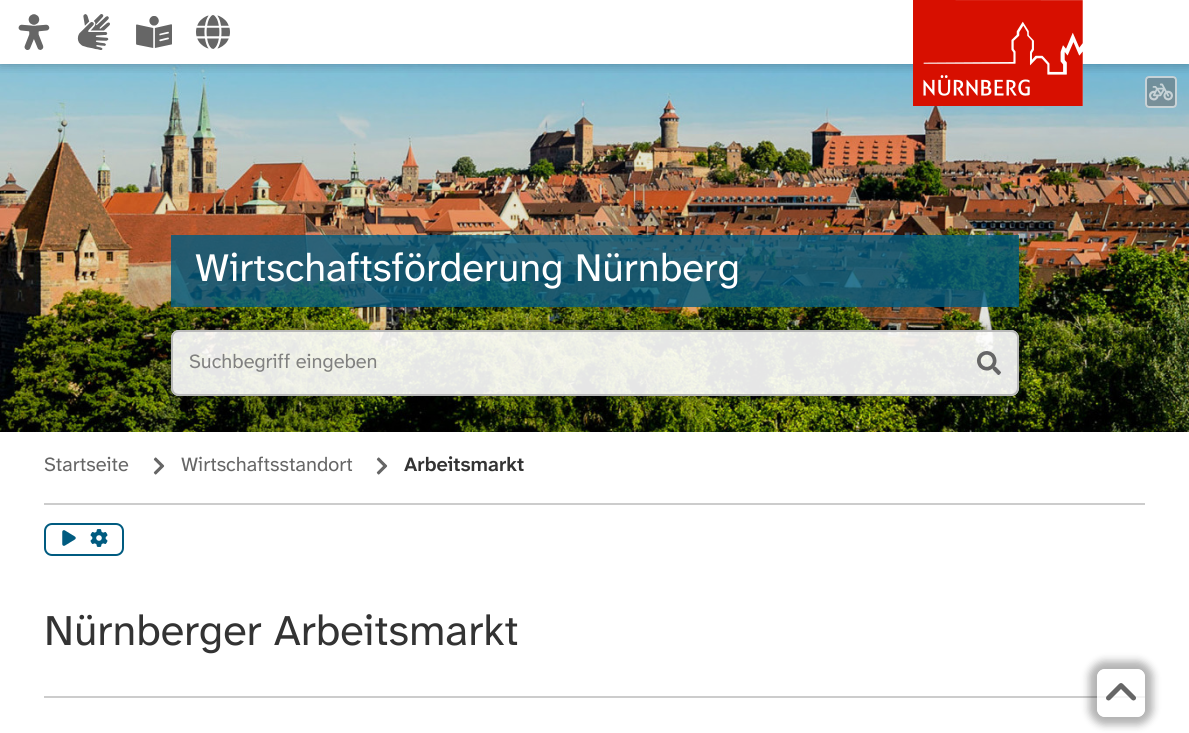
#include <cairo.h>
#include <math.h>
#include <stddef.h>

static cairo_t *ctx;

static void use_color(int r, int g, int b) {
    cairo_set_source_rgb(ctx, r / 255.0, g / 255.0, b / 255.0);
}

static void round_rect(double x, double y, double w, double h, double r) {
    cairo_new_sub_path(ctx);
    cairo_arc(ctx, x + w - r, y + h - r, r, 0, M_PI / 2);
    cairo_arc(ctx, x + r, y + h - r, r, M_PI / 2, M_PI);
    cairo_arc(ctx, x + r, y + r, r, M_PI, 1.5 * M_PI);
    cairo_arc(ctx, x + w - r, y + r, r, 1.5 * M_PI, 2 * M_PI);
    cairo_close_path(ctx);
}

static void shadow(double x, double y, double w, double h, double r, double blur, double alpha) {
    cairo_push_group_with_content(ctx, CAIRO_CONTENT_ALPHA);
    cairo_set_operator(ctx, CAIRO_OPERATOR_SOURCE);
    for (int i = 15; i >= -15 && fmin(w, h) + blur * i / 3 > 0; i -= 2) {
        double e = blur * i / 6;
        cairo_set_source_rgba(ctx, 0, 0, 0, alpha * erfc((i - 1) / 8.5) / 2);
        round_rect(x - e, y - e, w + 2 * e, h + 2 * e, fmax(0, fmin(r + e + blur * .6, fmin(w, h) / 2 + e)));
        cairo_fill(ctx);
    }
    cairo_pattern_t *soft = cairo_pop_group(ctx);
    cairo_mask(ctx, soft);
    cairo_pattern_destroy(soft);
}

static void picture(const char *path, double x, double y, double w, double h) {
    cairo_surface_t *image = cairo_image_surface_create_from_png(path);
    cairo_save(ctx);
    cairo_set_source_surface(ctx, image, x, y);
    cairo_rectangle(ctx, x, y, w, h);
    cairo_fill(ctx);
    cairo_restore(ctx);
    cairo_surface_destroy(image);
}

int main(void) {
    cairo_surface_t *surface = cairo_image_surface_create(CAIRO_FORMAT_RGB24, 1189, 733);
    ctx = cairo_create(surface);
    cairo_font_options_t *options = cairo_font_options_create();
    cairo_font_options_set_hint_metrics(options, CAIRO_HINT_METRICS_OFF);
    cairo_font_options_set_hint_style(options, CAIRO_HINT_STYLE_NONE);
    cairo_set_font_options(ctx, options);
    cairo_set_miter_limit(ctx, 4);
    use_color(255, 255, 255);
    cairo_paint(ctx);
    picture("img7.png", 0, 64, 1189, 368);
    cairo_set_source_rgba(ctx, 0.4, 0.4, 0.4, 0.5);
    round_rect(1145, 76, 32, 32, 4);
    cairo_fill(ctx);
    round_rect(1146, 77, 30, 30, 3);
    cairo_set_source_rgba(ctx, 1, 1, 1, 0.6);
    cairo_stroke(ctx);
    cairo_save(ctx);
    cairo_rectangle(ctx, 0, 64, 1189, 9);
    cairo_clip(ctx);
    use_color(0, 0, 0);
    shadow(0, 0, 1189, 64, 0, 6, 0.3);
    cairo_restore(ctx);
    picture("img1.png", 18, 14, 32, 36);
    picture("img2.png", 77, 14, 33, 36);
    picture("img3.png", 136, 16, 36, 32);
    picture("img4.png", 196, 15, 34, 34);
    picture("img5.png", 913, 0, 170, 106);
    picture("img6.png", 1149, 83, 24, 18);
    cairo_set_source_rgba(ctx, 0, 0.357, 0.502, 0.8);
    cairo_rectangle(ctx, 171, 235, 848, 72);
    cairo_fill(ctx);
    cairo_select_font_face(ctx, "Atkinson Hyperlegible Next", CAIRO_FONT_SLANT_NORMAL, CAIRO_FONT_WEIGHT_NORMAL);
    cairo_set_font_size(ctx, 39.9);
    use_color(255, 255, 255);
    cairo_move_to(ctx, 195, 281);
    cairo_show_text(ctx, "Wirtschaftsförderung Nürnberg");
    cairo_save(ctx);
    cairo_set_fill_rule(ctx, CAIRO_FILL_RULE_EVEN_ODD);
    cairo_new_path(ctx);
    cairo_move_to(ctx, 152, 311);
    cairo_line_to(ctx, 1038, 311);
    cairo_line_to(ctx, 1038, 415);
    cairo_line_to(ctx, 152, 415);
    cairo_close_path(ctx);
    cairo_move_to(ctx, 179, 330);
    cairo_line_to(ctx, 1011, 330);
    cairo_curve_to(ctx, 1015.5, 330, 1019, 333.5, 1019, 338);
    cairo_line_to(ctx, 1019, 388);
    cairo_curve_to(ctx, 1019, 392.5, 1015.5, 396, 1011, 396);
    cairo_line_to(ctx, 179, 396);
    cairo_curve_to(ctx, 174.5, 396, 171, 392.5, 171, 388);
    cairo_line_to(ctx, 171, 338);
    cairo_curve_to(ctx, 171, 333.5, 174.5, 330, 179, 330);
    cairo_close_path(ctx);
    cairo_clip(ctx);
    use_color(0, 0, 0);
    shadow(171, 330, 848, 66, 8, 6, 0.27);
    cairo_restore(ctx);
    cairo_set_source_rgba(ctx, 1, 1, 1, 0.9);
    round_rect(171, 330, 848, 66, 8);
    cairo_fill(ctx);
    round_rect(172, 331, 846, 64, 7);
    cairo_set_source_rgba(ctx, 0.702, 0.702, 0.702, 0.9);
    cairo_stroke(ctx);
    cairo_set_font_size(ctx, 20);
    use_color(129, 129, 128);
    cairo_move_to(ctx, 189, 368);
    cairo_show_text(ctx, "Suchbegriff eingeben");
    picture("img8.png", 977, 351, 24, 24);
    use_color(102, 102, 102);
    cairo_move_to(ctx, 44, 471);
    cairo_show_text(ctx, "Startseite");
    picture("img9.png", 153, 457, 12, 18);
    cairo_move_to(ctx, 181, 471);
    cairo_show_text(ctx, "Wirtschaftsstandort");
    picture("img9.png", 376, 457, 12, 18);
    cairo_select_font_face(ctx, "Atkinson Hyperlegible Next SemiBold", CAIRO_FONT_SLANT_NORMAL, CAIRO_FONT_WEIGHT_NORMAL);
    use_color(51, 51, 51);
    cairo_move_to(ctx, 404, 471);
    cairo_show_text(ctx, "Arbeitsmarkt");
    use_color(204, 204, 204);
    cairo_rectangle(ctx, 44, 503, 1101, 2);
    cairo_fill(ctx);
    round_rect(45, 524, 78, 31, 7);
    use_color(0, 91, 128);
    cairo_stroke(ctx);
    picture("img10.png", 62, 530, 14, 16);
    picture("img11.png", 90, 529, 18, 18);
    cairo_select_font_face(ctx, "Atkinson Hyperlegible Next", CAIRO_FONT_SLANT_NORMAL, CAIRO_FONT_WEIGHT_NORMAL);
    cairo_set_font_size(ctx, 43.25);
    use_color(51, 51, 51);
    cairo_move_to(ctx, 44, 645);
    cairo_show_text(ctx, "Nürnberger Arbeitsmarkt");
    use_color(204, 204, 204);
    cairo_rectangle(ctx, 44, 696, 1101, 2);
    cairo_fill(ctx);
    cairo_save(ctx);
    cairo_set_fill_rule(ctx, CAIRO_FILL_RULE_EVEN_ODD);
    cairo_new_path(ctx);
    cairo_move_to(ctx, 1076, 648);
    cairo_line_to(ctx, 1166, 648);
    cairo_line_to(ctx, 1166, 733);
    cairo_line_to(ctx, 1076, 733);
    cairo_close_path(ctx);
    cairo_move_to(ctx, 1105, 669);
    cairo_line_to(ctx, 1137, 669);
    cairo_curve_to(ctx, 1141.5, 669, 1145, 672.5, 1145, 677);
    cairo_line_to(ctx, 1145, 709);
    cairo_curve_to(ctx, 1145, 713.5, 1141.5, 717, 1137, 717);
    cairo_line_to(ctx, 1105, 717);
    cairo_curve_to(ctx, 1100.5, 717, 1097, 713.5, 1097, 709);
    cairo_line_to(ctx, 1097, 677);
    cairo_curve_to(ctx, 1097, 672.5, 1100.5, 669, 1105, 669);
    cairo_close_path(ctx);
    cairo_clip(ctx);
    use_color(0, 0, 0);
    shadow(1089, 661, 64, 64, 16, 4, 0.3);
    cairo_restore(ctx);
    cairo_set_source_rgba(ctx, 1, 1, 1, 0.8);
    cairo_new_path(ctx);
    cairo_move_to(ctx, 1137, 717);
    cairo_line_to(ctx, 1105, 717);
    cairo_curve_to(ctx, 1101, 717, 1097, 713, 1097, 709);
    cairo_line_to(ctx, 1097, 677);
    cairo_curve_to(ctx, 1097, 673, 1101, 669, 1105, 669);
    cairo_line_to(ctx, 1137, 669);
    cairo_curve_to(ctx, 1142, 669, 1145, 673, 1145, 677);
    cairo_line_to(ctx, 1145, 709);
    cairo_curve_to(ctx, 1145, 713, 1142, 717, 1137, 717);
    cairo_close_path(ctx);
    cairo_fill(ctx);
    picture("img12.png", 1106, 683, 30, 18);
    cairo_surface_write_to_png(surface, "result.png");
    cairo_font_options_destroy(options);
    cairo_destroy(ctx);
    cairo_surface_destroy(surface);
    return 0;
}
